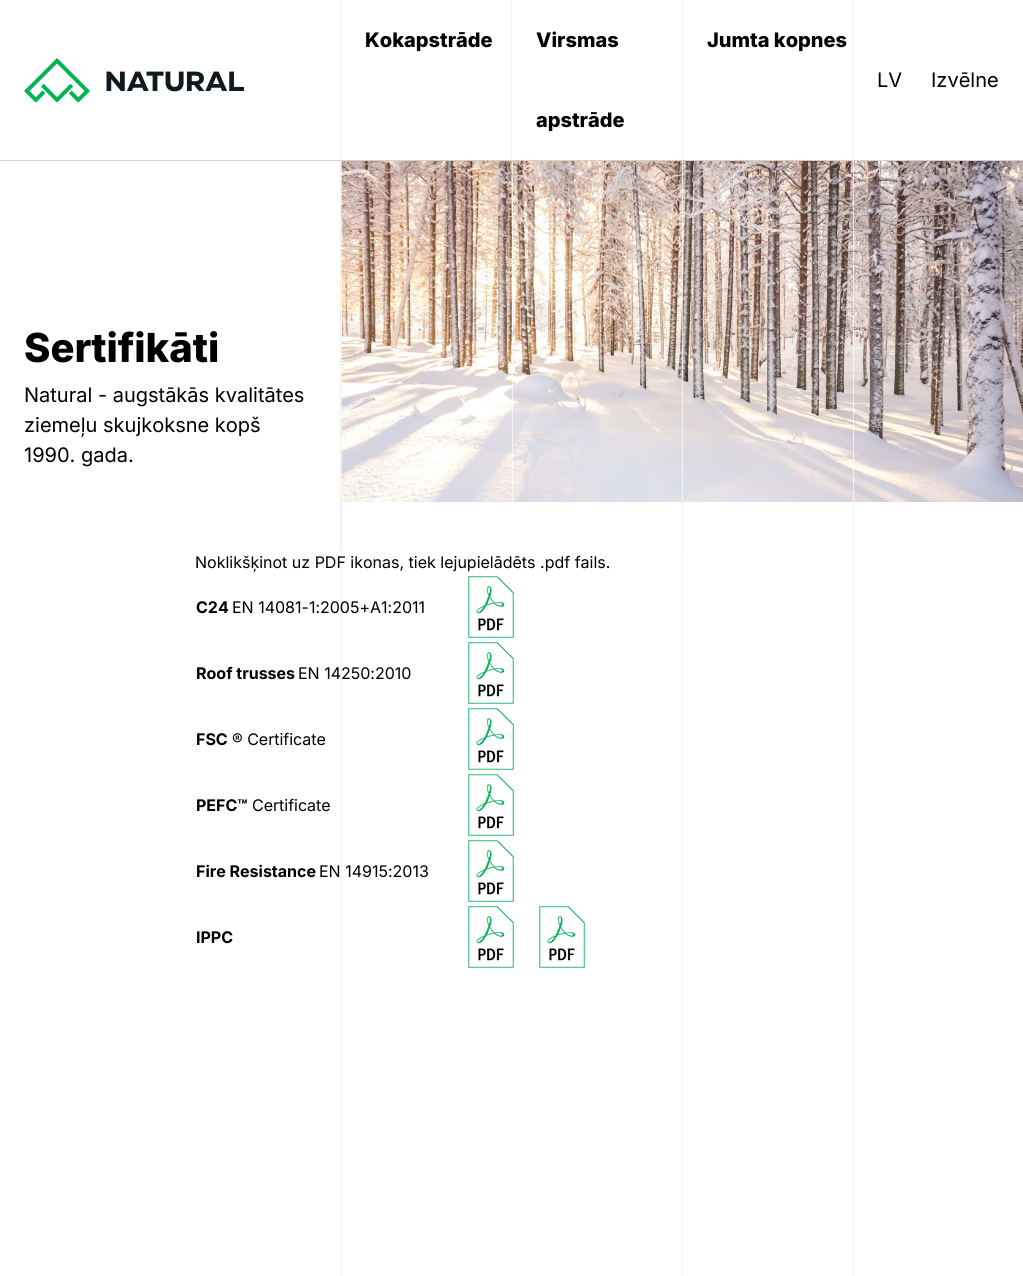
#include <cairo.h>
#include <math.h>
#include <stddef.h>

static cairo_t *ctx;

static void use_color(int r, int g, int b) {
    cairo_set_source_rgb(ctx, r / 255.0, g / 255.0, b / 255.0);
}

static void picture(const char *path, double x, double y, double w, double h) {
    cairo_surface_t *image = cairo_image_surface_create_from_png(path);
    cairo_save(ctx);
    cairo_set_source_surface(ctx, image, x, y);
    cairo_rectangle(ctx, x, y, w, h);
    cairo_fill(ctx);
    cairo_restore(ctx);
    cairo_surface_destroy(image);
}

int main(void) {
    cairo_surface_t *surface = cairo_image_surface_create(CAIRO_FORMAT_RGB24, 1023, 1276);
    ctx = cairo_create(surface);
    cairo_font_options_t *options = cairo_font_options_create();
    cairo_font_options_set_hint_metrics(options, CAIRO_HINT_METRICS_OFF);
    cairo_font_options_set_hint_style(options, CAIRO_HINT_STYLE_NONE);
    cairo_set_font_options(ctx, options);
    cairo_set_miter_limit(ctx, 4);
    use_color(255, 255, 255);
    cairo_paint(ctx);
    use_color(241, 239, 234);
    cairo_rectangle(ctx, 0, 0, 853, 161);
    cairo_fill(ctx);
    use_color(255, 255, 255);
    cairo_rectangle(ctx, 0, 0, 340, 160);
    cairo_fill(ctx);
    picture("img1.png", 24, 58, 220, 44);
    cairo_rectangle(ctx, 341, 0, 170, 160);
    cairo_fill(ctx);
    cairo_select_font_face(ctx, "Inter ExtraBold", CAIRO_FONT_SLANT_NORMAL, CAIRO_FONT_WEIGHT_NORMAL);
    cairo_set_font_size(ctx, 20);
    use_color(0, 0, 0);
    cairo_move_to(ctx, 365, 47);
    cairo_show_text(ctx, "Kokapstrāde");
    use_color(255, 255, 255);
    cairo_rectangle(ctx, 512, 0, 170, 160);
    cairo_fill(ctx);
    use_color(0, 0, 0);
    cairo_move_to(ctx, 536, 47);
    cairo_show_text(ctx, "Virsmas");
    cairo_move_to(ctx, 536, 127);
    cairo_show_text(ctx, "apstrāde");
    use_color(255, 255, 255);
    cairo_rectangle(ctx, 683, 0, 169, 160);
    cairo_fill(ctx);
    use_color(0, 0, 0);
    cairo_move_to(ctx, 707, 47);
    cairo_show_text(ctx, "Jumta kopnes");
    cairo_select_font_face(ctx, "Inter", CAIRO_FONT_SLANT_NORMAL, CAIRO_FONT_WEIGHT_NORMAL);
    cairo_move_to(ctx, 877, 87);
    cairo_show_text(ctx, "LV");
    cairo_move_to(ctx, 931, 87);
    cairo_show_text(ctx, "Izvēlne");
    use_color(215, 210, 195);
    cairo_rectangle(ctx, 1, 160, 1022, 1);
    cairo_fill(ctx);
    use_color(241, 239, 234);
    cairo_rectangle(ctx, 340, 161, 2, 389);
    cairo_fill(ctx);
    use_color(248, 247, 245);
    cairo_rectangle(ctx, 340, 550, 2, 726);
    cairo_fill(ctx);
    use_color(241, 239, 234);
    cairo_rectangle(ctx, 682, 502, 1, 48);
    cairo_fill(ctx);
    use_color(248, 247, 245);
    cairo_rectangle(ctx, 682, 550, 1, 726);
    cairo_fill(ctx);
    use_color(241, 239, 234);
    cairo_rectangle(ctx, 853, 502, 1, 774);
    cairo_fill(ctx);
    cairo_select_font_face(ctx, "Inter ExtraBold", CAIRO_FONT_SLANT_NORMAL, CAIRO_FONT_WEIGHT_NORMAL);
    cairo_set_font_size(ctx, 40);
    use_color(0, 0, 0);
    cairo_move_to(ctx, 24, 362);
    cairo_show_text(ctx, "Sertifikāti");
    cairo_select_font_face(ctx, "Inter", CAIRO_FONT_SLANT_NORMAL, CAIRO_FONT_WEIGHT_NORMAL);
    cairo_set_font_size(ctx, 20);
    cairo_move_to(ctx, 24, 402);
    cairo_show_text(ctx, "Natural - augstākās kvalitātes");
    cairo_move_to(ctx, 24, 432);
    cairo_show_text(ctx, "ziemeļu skujkoksne kopš");
    cairo_move_to(ctx, 24, 462);
    cairo_show_text(ctx, "1990. gada.");
    picture("img2.png", 341, 161, 682, 341);
    cairo_set_source_rgba(ctx, 1, 1, 1, 0.65);
    cairo_rectangle(ctx, 341, 161, 1, 341);
    cairo_fill(ctx);
    cairo_rectangle(ctx, 512, 161, 1, 341);
    cairo_fill(ctx);
    cairo_rectangle(ctx, 682, 161, 1, 341);
    cairo_fill(ctx);
    cairo_rectangle(ctx, 853, 161, 1, 341);
    cairo_fill(ctx);
    cairo_set_font_size(ctx, 16);
    use_color(0, 0, 0);
    cairo_move_to(ctx, 195, 568);
    cairo_show_text(ctx, "Noklikšķinot uz PDF ikonas, tiek lejupielādēts .pdf fails.");
    cairo_select_font_face(ctx, "Inter", CAIRO_FONT_SLANT_NORMAL, CAIRO_FONT_WEIGHT_BOLD);
    cairo_move_to(ctx, 196, 613);
    cairo_show_text(ctx, "C24");
    cairo_select_font_face(ctx, "Inter", CAIRO_FONT_SLANT_NORMAL, CAIRO_FONT_WEIGHT_NORMAL);
    cairo_move_to(ctx, 232, 613);
    cairo_show_text(ctx, "EN 14081-1:2005+A1:2011");
    picture("img3.png", 468, 576, 46, 62);
    cairo_select_font_face(ctx, "Inter", CAIRO_FONT_SLANT_NORMAL, CAIRO_FONT_WEIGHT_BOLD);
    cairo_move_to(ctx, 196, 679);
    cairo_show_text(ctx, "Roof trusses");
    cairo_select_font_face(ctx, "Inter", CAIRO_FONT_SLANT_NORMAL, CAIRO_FONT_WEIGHT_NORMAL);
    cairo_move_to(ctx, 298, 679);
    cairo_show_text(ctx, "EN 14250:2010");
    picture("img3.png", 468, 642, 46, 62);
    cairo_select_font_face(ctx, "Inter", CAIRO_FONT_SLANT_NORMAL, CAIRO_FONT_WEIGHT_BOLD);
    cairo_move_to(ctx, 196, 745);
    cairo_show_text(ctx, "FSC");
    cairo_select_font_face(ctx, "Inter", CAIRO_FONT_SLANT_NORMAL, CAIRO_FONT_WEIGHT_NORMAL);
    cairo_move_to(ctx, 232, 745);
    cairo_show_text(ctx, "® Certificate");
    picture("img3.png", 468, 708, 46, 62);
    cairo_select_font_face(ctx, "Inter", CAIRO_FONT_SLANT_NORMAL, CAIRO_FONT_WEIGHT_BOLD);
    cairo_move_to(ctx, 196, 811);
    cairo_show_text(ctx, "PEFC™");
    cairo_select_font_face(ctx, "Inter", CAIRO_FONT_SLANT_NORMAL, CAIRO_FONT_WEIGHT_NORMAL);
    cairo_move_to(ctx, 252, 811);
    cairo_show_text(ctx, "Certificate");
    picture("img3.png", 468, 774, 46, 62);
    cairo_select_font_face(ctx, "Inter", CAIRO_FONT_SLANT_NORMAL, CAIRO_FONT_WEIGHT_BOLD);
    cairo_move_to(ctx, 196, 877);
    cairo_show_text(ctx, "Fire Resistance");
    cairo_select_font_face(ctx, "Inter", CAIRO_FONT_SLANT_NORMAL, CAIRO_FONT_WEIGHT_NORMAL);
    cairo_move_to(ctx, 319, 877);
    cairo_show_text(ctx, "EN 14915:2013");
    picture("img3.png", 468, 840, 46, 62);
    cairo_select_font_face(ctx, "Inter", CAIRO_FONT_SLANT_NORMAL, CAIRO_FONT_WEIGHT_BOLD);
    cairo_move_to(ctx, 196, 943);
    cairo_show_text(ctx, "IPPC");
    picture("img3.png", 468, 906, 46, 62);
    picture("img3.png", 539, 906, 46, 62);
    cairo_surface_write_to_png(surface, "result.png");
    cairo_font_options_destroy(options);
    cairo_destroy(ctx);
    cairo_surface_destroy(surface);
    return 0;
}
